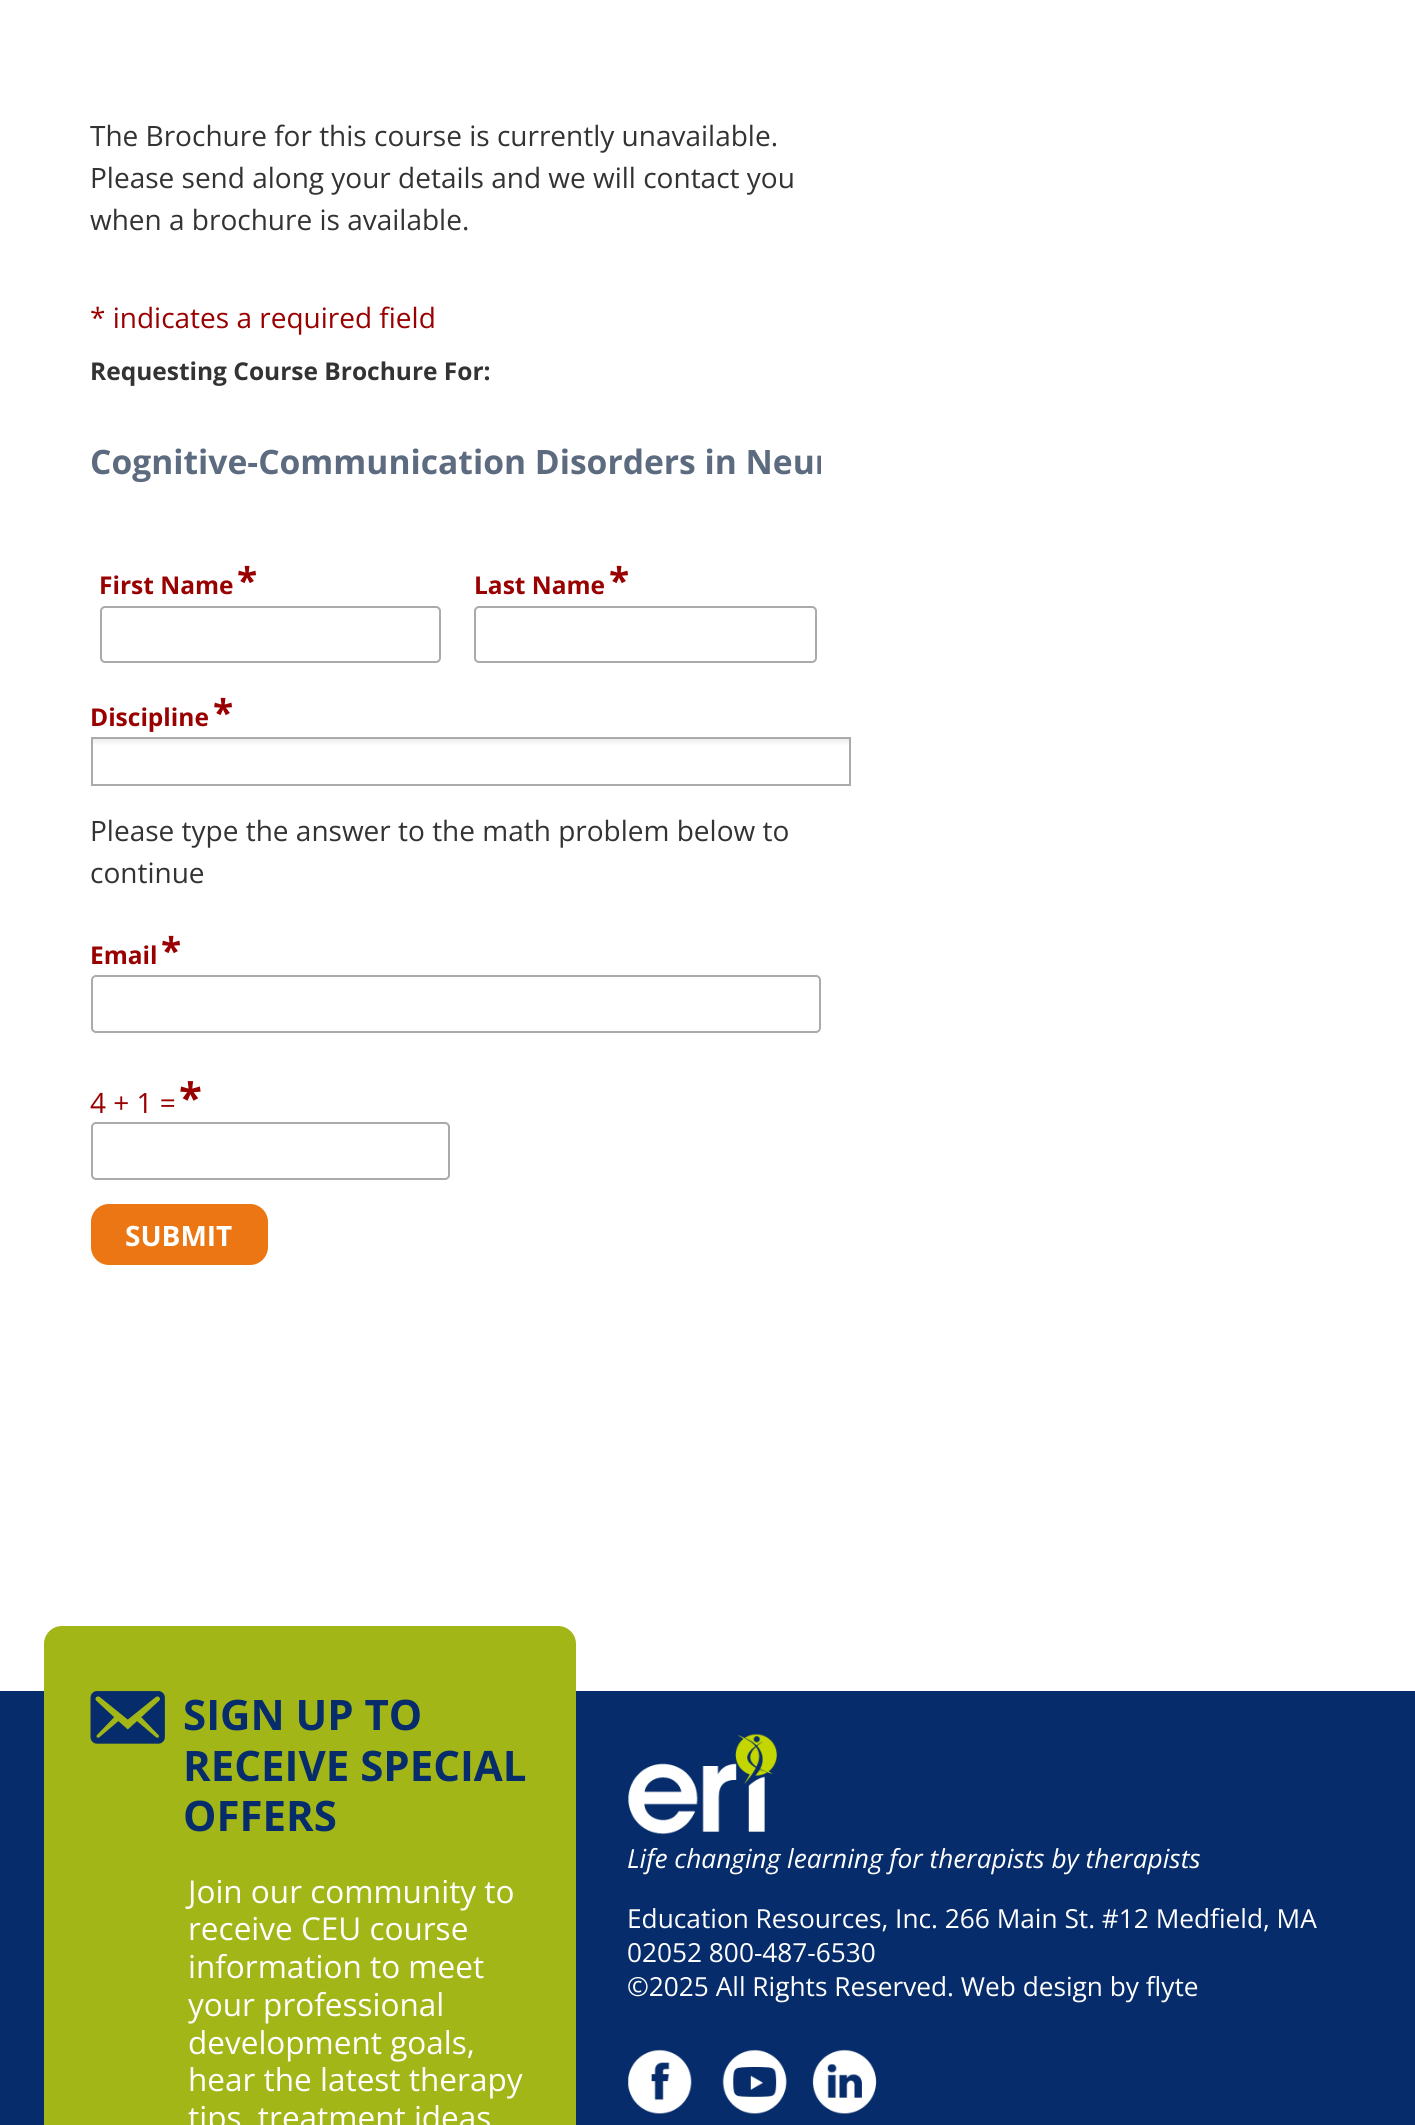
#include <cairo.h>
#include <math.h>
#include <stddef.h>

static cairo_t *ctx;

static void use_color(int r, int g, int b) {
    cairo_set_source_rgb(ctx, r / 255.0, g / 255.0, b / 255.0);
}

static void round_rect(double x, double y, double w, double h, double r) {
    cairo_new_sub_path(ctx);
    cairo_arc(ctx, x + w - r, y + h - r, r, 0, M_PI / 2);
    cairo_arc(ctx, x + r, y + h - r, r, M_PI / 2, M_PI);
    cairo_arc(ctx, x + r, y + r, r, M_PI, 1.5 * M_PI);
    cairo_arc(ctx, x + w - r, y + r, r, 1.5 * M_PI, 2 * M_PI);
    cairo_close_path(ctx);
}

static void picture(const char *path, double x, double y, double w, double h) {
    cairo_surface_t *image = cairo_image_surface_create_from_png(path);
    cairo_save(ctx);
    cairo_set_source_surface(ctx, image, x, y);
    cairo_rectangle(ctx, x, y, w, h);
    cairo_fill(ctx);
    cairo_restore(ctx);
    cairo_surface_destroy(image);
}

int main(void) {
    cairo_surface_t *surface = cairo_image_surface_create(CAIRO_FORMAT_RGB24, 1415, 2125);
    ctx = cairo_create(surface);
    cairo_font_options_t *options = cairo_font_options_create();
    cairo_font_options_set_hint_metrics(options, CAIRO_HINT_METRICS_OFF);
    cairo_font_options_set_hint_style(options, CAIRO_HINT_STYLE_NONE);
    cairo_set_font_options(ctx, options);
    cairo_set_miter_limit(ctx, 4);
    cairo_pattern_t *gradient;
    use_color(255, 255, 255);
    cairo_paint(ctx);
    cairo_select_font_face(ctx, "Open Sans", CAIRO_FONT_SLANT_NORMAL, CAIRO_FONT_WEIGHT_NORMAL);
    cairo_set_font_size(ctx, 28);
    use_color(51, 51, 51);
    cairo_move_to(ctx, 90, 146);
    cairo_show_text(ctx, "The Brochure for this course is currently unavailable.");
    cairo_move_to(ctx, 90, 188);
    cairo_show_text(ctx, "Please send along your details and we will contact you");
    cairo_move_to(ctx, 90, 230);
    cairo_show_text(ctx, "when a brochure is available.");
    use_color(153, 0, 0);
    cairo_move_to(ctx, 90, 328);
    cairo_show_text(ctx, "* indicates a required field");
    cairo_select_font_face(ctx, "Open Sans", CAIRO_FONT_SLANT_NORMAL, CAIRO_FONT_WEIGHT_BOLD);
    cairo_set_font_size(ctx, 24.5);
    use_color(51, 51, 51);
    cairo_move_to(ctx, 90, 380);
    cairo_show_text(ctx, "Requesting Course Brochure For:");
    cairo_save(ctx);
    cairo_rectangle(ctx, 91, 432, 730, 58);
    cairo_clip(ctx);
    cairo_set_font_size(ctx, 33.6);
    use_color(92, 107, 128);
    cairo_move_to(ctx, 90, 474);
    cairo_show_text(ctx, "Cognitive-Communication Disorders in Neur");
    cairo_restore(ctx);
    use_color(153, 0, 0);
    cairo_move_to(ctx, 99, 594);
    cairo_show_text(ctx, "First Name");
    cairo_set_font_size(ctx, 37);
    cairo_move_to(ctx, 237, 594);
    cairo_show_text(ctx, "*");
    round_rect(101, 607, 339, 55, 4);
    use_color(170, 170, 170);
    cairo_stroke(ctx);
    cairo_set_font_size(ctx, 24.5);
    use_color(153, 0, 0);
    cairo_move_to(ctx, 474, 594);
    cairo_show_text(ctx, "Last Name");
    cairo_set_font_size(ctx, 37);
    cairo_move_to(ctx, 609, 594);
    cairo_show_text(ctx, "*");
    round_rect(475, 607, 341, 55, 4);
    use_color(170, 170, 170);
    cairo_stroke(ctx);
    cairo_set_font_size(ctx, 24.5);
    use_color(153, 0, 0);
    cairo_move_to(ctx, 90, 726);
    cairo_show_text(ctx, "Discipline");
    cairo_set_font_size(ctx, 37);
    cairo_move_to(ctx, 213, 726);
    cairo_show_text(ctx, "*");
    gradient = cairo_pattern_create_linear(471, 739, 471, 784);
    cairo_pattern_add_color_stop_rgba(gradient, 0.01, 0.933, 0.933, 0.933, 1);
    cairo_pattern_add_color_stop_rgba(gradient, 0.15, 1, 1, 1, 1);
    cairo_set_source(ctx, gradient);
    cairo_pattern_destroy(gradient);
    cairo_rectangle(ctx, 93, 739, 756, 6);
    cairo_fill(ctx);
    cairo_rectangle(ctx, 92, 738, 758, 47);
    use_color(170, 170, 170);
    cairo_stroke(ctx);
    cairo_select_font_face(ctx, "Open Sans", CAIRO_FONT_SLANT_NORMAL, CAIRO_FONT_WEIGHT_NORMAL);
    cairo_set_font_size(ctx, 28);
    use_color(51, 51, 51);
    cairo_move_to(ctx, 90, 841);
    cairo_show_text(ctx, "Please type the answer to the math problem below to");
    cairo_move_to(ctx, 90, 883);
    cairo_show_text(ctx, "continue");
    cairo_select_font_face(ctx, "Open Sans", CAIRO_FONT_SLANT_NORMAL, CAIRO_FONT_WEIGHT_BOLD);
    cairo_set_font_size(ctx, 24.5);
    use_color(153, 0, 0);
    cairo_move_to(ctx, 90, 964);
    cairo_show_text(ctx, "Email");
    cairo_set_font_size(ctx, 37);
    cairo_move_to(ctx, 161, 964);
    cairo_show_text(ctx, "*");
    round_rect(92, 976, 728, 56, 4);
    use_color(170, 170, 170);
    cairo_stroke(ctx);
    cairo_select_font_face(ctx, "Open Sans", CAIRO_FONT_SLANT_NORMAL, CAIRO_FONT_WEIGHT_NORMAL);
    cairo_set_font_size(ctx, 28);
    use_color(153, 0, 0);
    cairo_move_to(ctx, 90, 1113);
    cairo_show_text(ctx, "4 + 1 =");
    cairo_select_font_face(ctx, "Open Sans", CAIRO_FONT_SLANT_NORMAL, CAIRO_FONT_WEIGHT_BOLD);
    cairo_set_font_size(ctx, 42);
    cairo_move_to(ctx, 179, 1113);
    cairo_show_text(ctx, "*");
    round_rect(92, 1123, 357, 56, 4);
    use_color(170, 170, 170);
    cairo_stroke(ctx);
    use_color(235, 118, 19);
    round_rect(91, 1204, 177, 61, 18);
    cairo_fill(ctx);
    cairo_set_font_size(ctx, 28);
    use_color(255, 255, 255);
    cairo_move_to(ctx, 125, 1246);
    cairo_show_text(ctx, "SUBMIT");
    use_color(6, 44, 107);
    cairo_rectangle(ctx, 0, 1691, 1415, 434);
    cairo_fill(ctx);
    use_color(162, 182, 24);
    cairo_rectangle(ctx, 44, 1696, 532, 429);
    cairo_fill(ctx);
    cairo_new_path(ctx);
    cairo_move_to(ctx, 62, 1626);
    cairo_line_to(ctx, 558, 1626);
    cairo_curve_to(ctx, 568, 1626, 576, 1634, 576, 1644);
    cairo_line_to(ctx, 576, 1696);
    cairo_line_to(ctx, 44, 1696);
    cairo_line_to(ctx, 44, 1644);
    cairo_curve_to(ctx, 44, 1634, 52, 1626, 62, 1626);
    cairo_close_path(ctx);
    cairo_fill(ctx);
    picture("img1.png", 90, 1691, 75, 53);
    cairo_set_font_size(ctx, 42);
    use_color(6, 44, 107);
    cairo_move_to(ctx, 183, 1730);
    cairo_show_text(ctx, "SIGN UP TO");
    cairo_move_to(ctx, 183, 1781);
    cairo_show_text(ctx, "RECEIVE SPECIAL");
    cairo_move_to(ctx, 183, 1831);
    cairo_show_text(ctx, "OFFERS");
    cairo_select_font_face(ctx, "Open Sans", CAIRO_FONT_SLANT_NORMAL, CAIRO_FONT_WEIGHT_NORMAL);
    cairo_set_font_size(ctx, 31.5);
    use_color(255, 255, 255);
    cairo_move_to(ctx, 188, 1903);
    cairo_show_text(ctx, "Join our community to");
    cairo_move_to(ctx, 188, 1940);
    cairo_show_text(ctx, "receive CEU course");
    cairo_move_to(ctx, 188, 1978);
    cairo_show_text(ctx, "information to meet");
    cairo_move_to(ctx, 188, 2016);
    cairo_show_text(ctx, "your professional");
    cairo_move_to(ctx, 188, 2054);
    cairo_show_text(ctx, "development goals,");
    cairo_move_to(ctx, 188, 2091);
    cairo_show_text(ctx, "hear the latest therapy");
    cairo_move_to(ctx, 188, 2129);
    cairo_show_text(ctx, "tips, treatment ideas");
    picture("img2.png", 628, 1734, 149, 101);
    cairo_select_font_face(ctx, "Open Sans", CAIRO_FONT_SLANT_ITALIC, CAIRO_FONT_WEIGHT_NORMAL);
    cairo_set_font_size(ctx, 26.25);
    cairo_move_to(ctx, 627, 1868);
    cairo_show_text(ctx, "Life changing learning for therapists by therapists");
    cairo_select_font_face(ctx, "Open Sans", CAIRO_FONT_SLANT_NORMAL, CAIRO_FONT_WEIGHT_NORMAL);
    cairo_move_to(ctx, 627, 1928);
    cairo_show_text(ctx, "Education Resources, Inc. 266 Main St. #12 Medfield, MA");
    cairo_move_to(ctx, 627, 1962);
    cairo_show_text(ctx, "02052 800-487-6530");
    cairo_move_to(ctx, 627, 1996);
    cairo_show_text(ctx, "©2025 All Rights Reserved. Web design by flyte");
    picture("img3.png", 628, 2049, 64, 65);
    picture("img4.png", 722, 2049, 65, 65);
    picture("img5.png", 812, 2049, 65, 65);
    cairo_surface_write_to_png(surface, "result.png");
    cairo_font_options_destroy(options);
    cairo_destroy(ctx);
    cairo_surface_destroy(surface);
    return 0;
}
